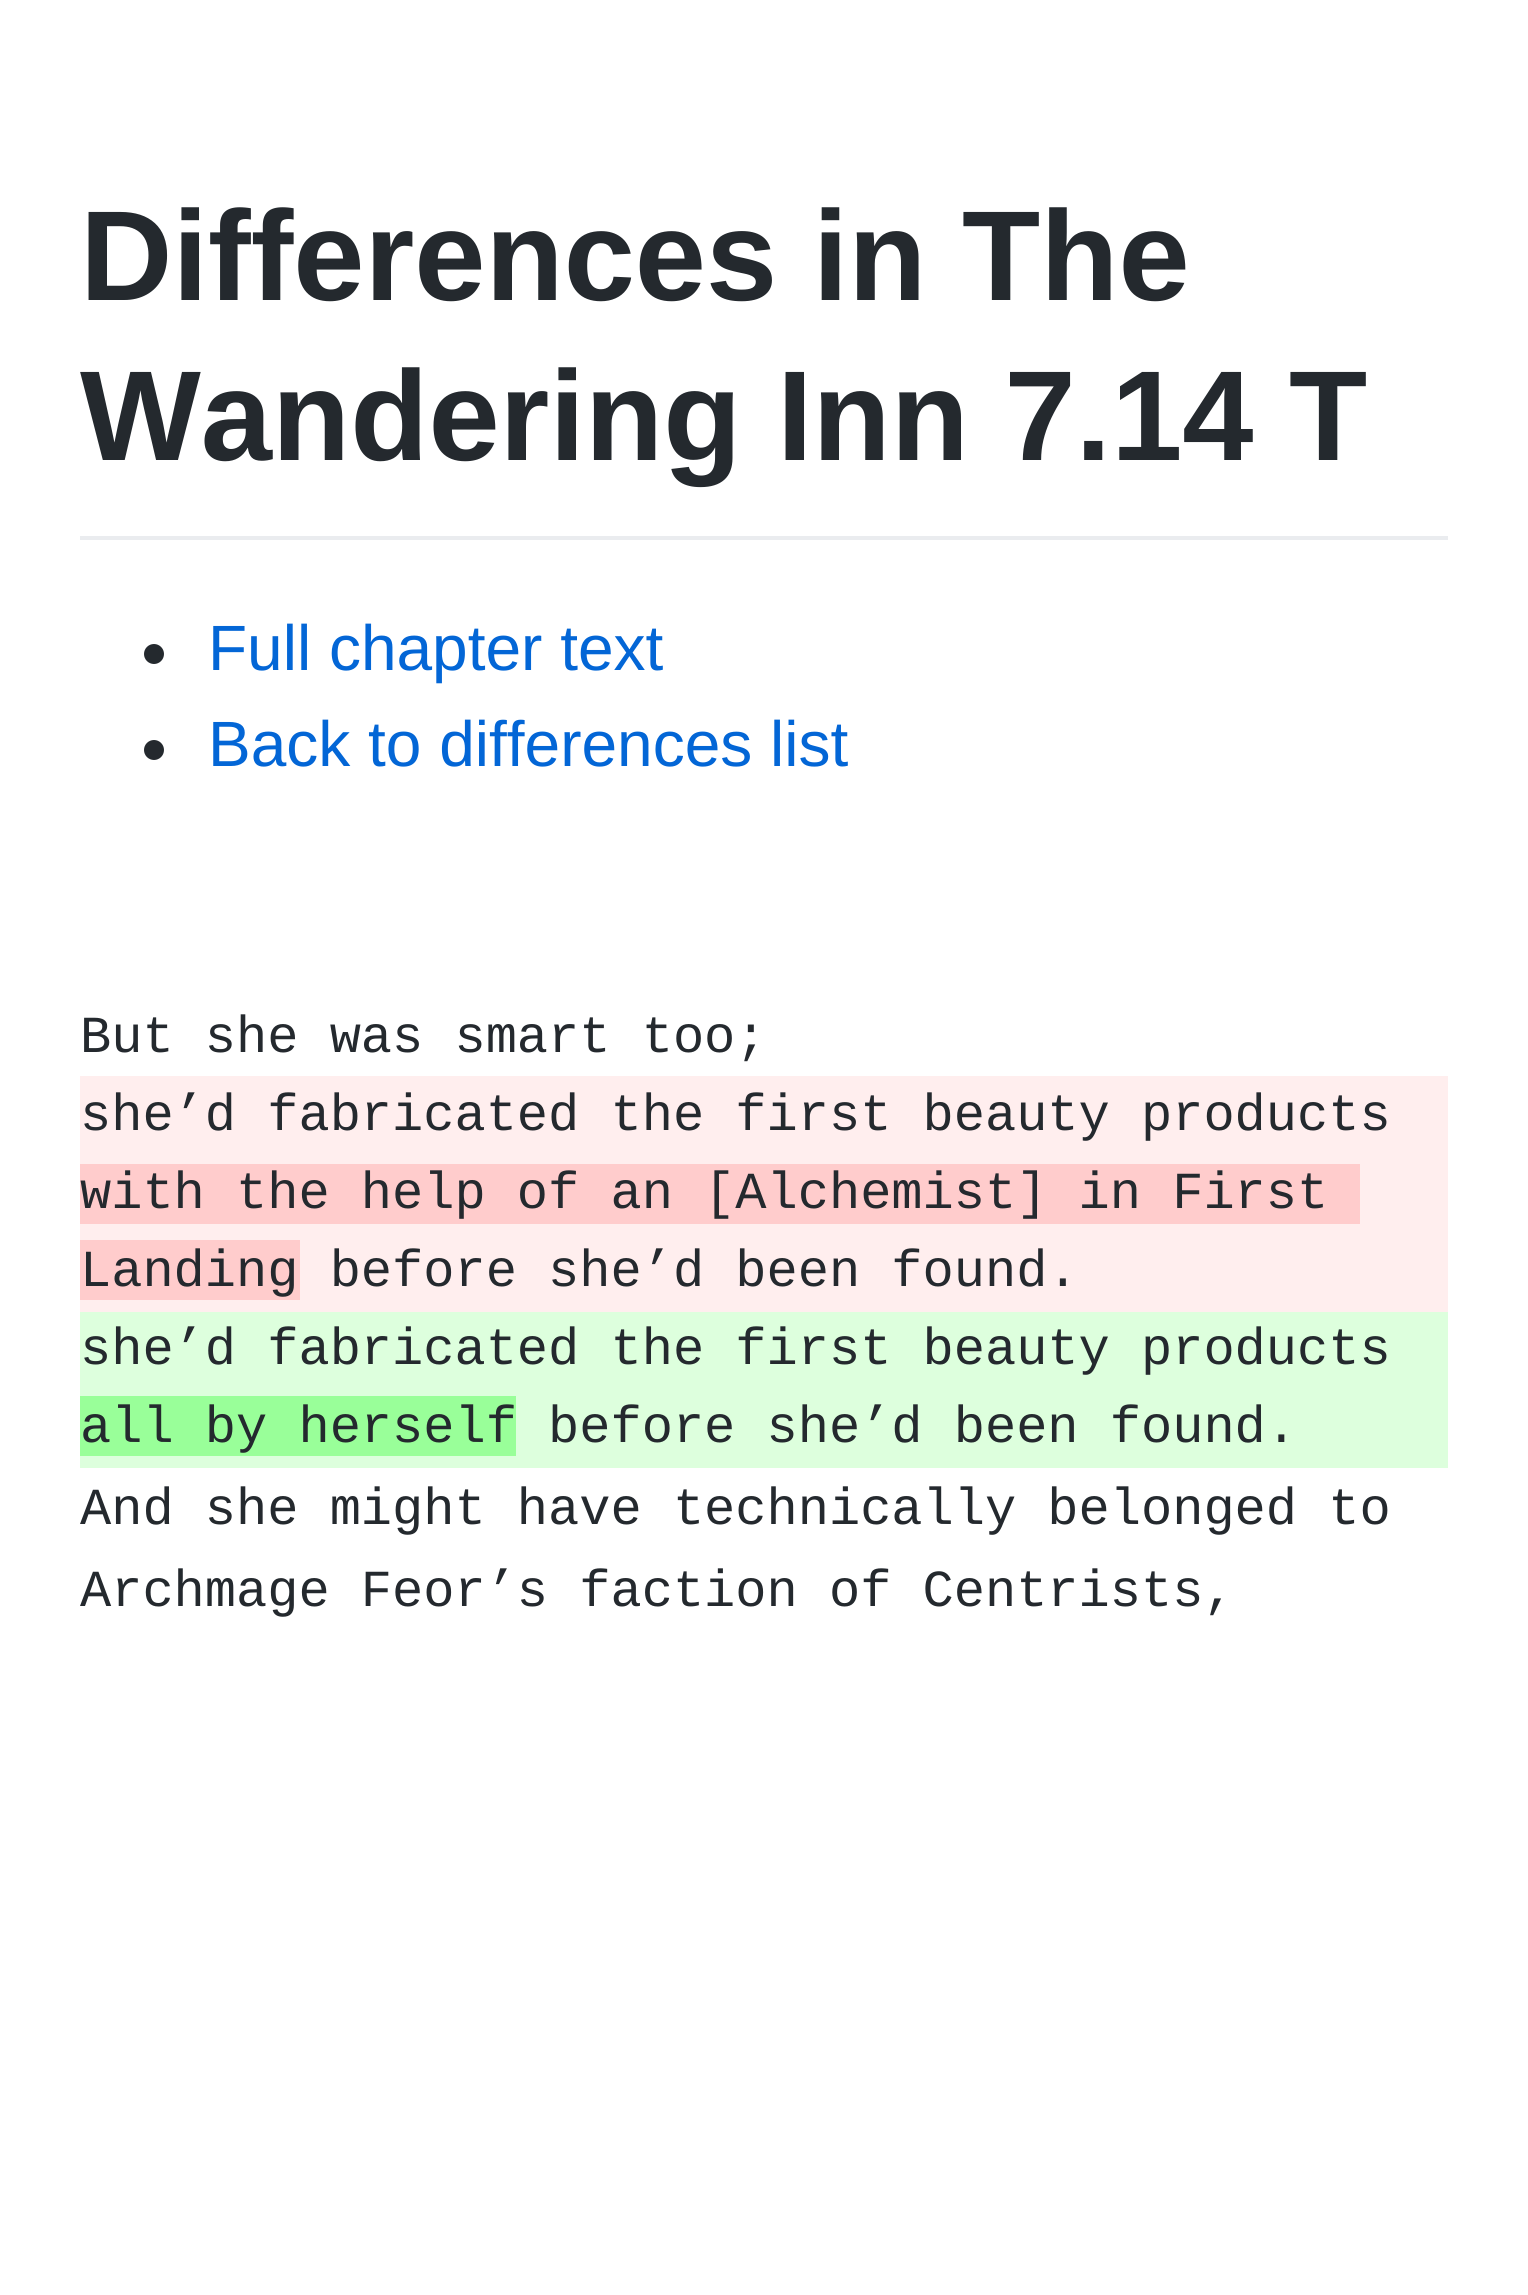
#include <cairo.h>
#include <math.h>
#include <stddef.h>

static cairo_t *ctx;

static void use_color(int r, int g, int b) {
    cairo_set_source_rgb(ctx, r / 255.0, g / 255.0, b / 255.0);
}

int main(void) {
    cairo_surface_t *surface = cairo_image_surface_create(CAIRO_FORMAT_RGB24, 1528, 2295);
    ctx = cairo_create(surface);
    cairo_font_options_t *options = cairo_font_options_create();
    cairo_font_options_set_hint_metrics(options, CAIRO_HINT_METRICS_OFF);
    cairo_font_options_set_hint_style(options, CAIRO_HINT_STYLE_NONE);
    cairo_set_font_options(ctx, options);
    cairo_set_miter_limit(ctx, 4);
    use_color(255, 255, 255);
    cairo_paint(ctx);
    use_color(234, 236, 239);
    cairo_rectangle(ctx, 80, 536, 1368, 4);
    cairo_fill(ctx);
    cairo_select_font_face(ctx, "Liberation Sans", CAIRO_FONT_SLANT_NORMAL, CAIRO_FONT_WEIGHT_BOLD);
    cairo_set_font_size(ctx, 128);
    use_color(36, 41, 46);
    cairo_move_to(ctx, 80, 300);
    cairo_show_text(ctx, "Differences in The");
    cairo_move_to(ctx, 80, 460);
    cairo_show_text(ctx, "Wandering Inn 7.14 T");
    cairo_new_path(ctx);
    cairo_arc(ctx, 154, 654, 10, 0, 2 * M_PI);
    cairo_fill(ctx);
    cairo_select_font_face(ctx, "Liberation Sans", CAIRO_FONT_SLANT_NORMAL, CAIRO_FONT_WEIGHT_NORMAL);
    cairo_set_font_size(ctx, 64);
    use_color(3, 102, 214);
    cairo_move_to(ctx, 208, 670);
    cairo_show_text(ctx, "Full chapter text");
    use_color(36, 41, 46);
    cairo_new_path(ctx);
    cairo_arc(ctx, 154, 750, 10, 0, 2 * M_PI);
    cairo_fill(ctx);
    use_color(3, 102, 214);
    cairo_move_to(ctx, 208, 766);
    cairo_show_text(ctx, "Back to differences list");
    cairo_select_font_face(ctx, "Liberation Mono", CAIRO_FONT_SLANT_NORMAL, CAIRO_FONT_WEIGHT_NORMAL);
    cairo_set_font_size(ctx, 52);
    use_color(36, 41, 46);
    cairo_move_to(ctx, 80, 1052);
    cairo_show_text(ctx, "But she was smart too;");
    use_color(255, 238, 238);
    cairo_rectangle(ctx, 80, 1076, 1368, 236);
    cairo_fill(ctx);
    use_color(36, 41, 46);
    cairo_move_to(ctx, 80, 1130);
    cairo_show_text(ctx, "she’d fabricated the first beauty products");
    use_color(255, 204, 204);
    cairo_rectangle(ctx, 80, 1164, 1280, 60);
    cairo_fill(ctx);
    use_color(36, 41, 46);
    cairo_move_to(ctx, 80, 1208);
    cairo_show_text(ctx, "with the help of an [Alchemist] in First");
    use_color(255, 204, 204);
    cairo_rectangle(ctx, 80, 1240, 220, 60);
    cairo_fill(ctx);
    use_color(36, 41, 46);
    cairo_move_to(ctx, 80, 1286);
    cairo_show_text(ctx, "Landing before she’d been found.");
    use_color(221, 255, 221);
    cairo_rectangle(ctx, 80, 1312, 1368, 156);
    cairo_fill(ctx);
    use_color(36, 41, 46);
    cairo_move_to(ctx, 80, 1364);
    cairo_show_text(ctx, "she’d fabricated the first beauty products");
    use_color(153, 255, 153);
    cairo_rectangle(ctx, 80, 1396, 436, 60);
    cairo_fill(ctx);
    use_color(36, 41, 46);
    cairo_move_to(ctx, 80, 1442);
    cairo_show_text(ctx, "all by herself before she’d been found.");
    cairo_move_to(ctx, 80, 1524);
    cairo_show_text(ctx, "And she might have technically belonged to");
    cairo_move_to(ctx, 80, 1606);
    cairo_show_text(ctx, "Archmage Feor’s faction of Centrists,");
    cairo_surface_write_to_png(surface, "result.png");
    cairo_font_options_destroy(options);
    cairo_destroy(ctx);
    cairo_surface_destroy(surface);
    return 0;
}
